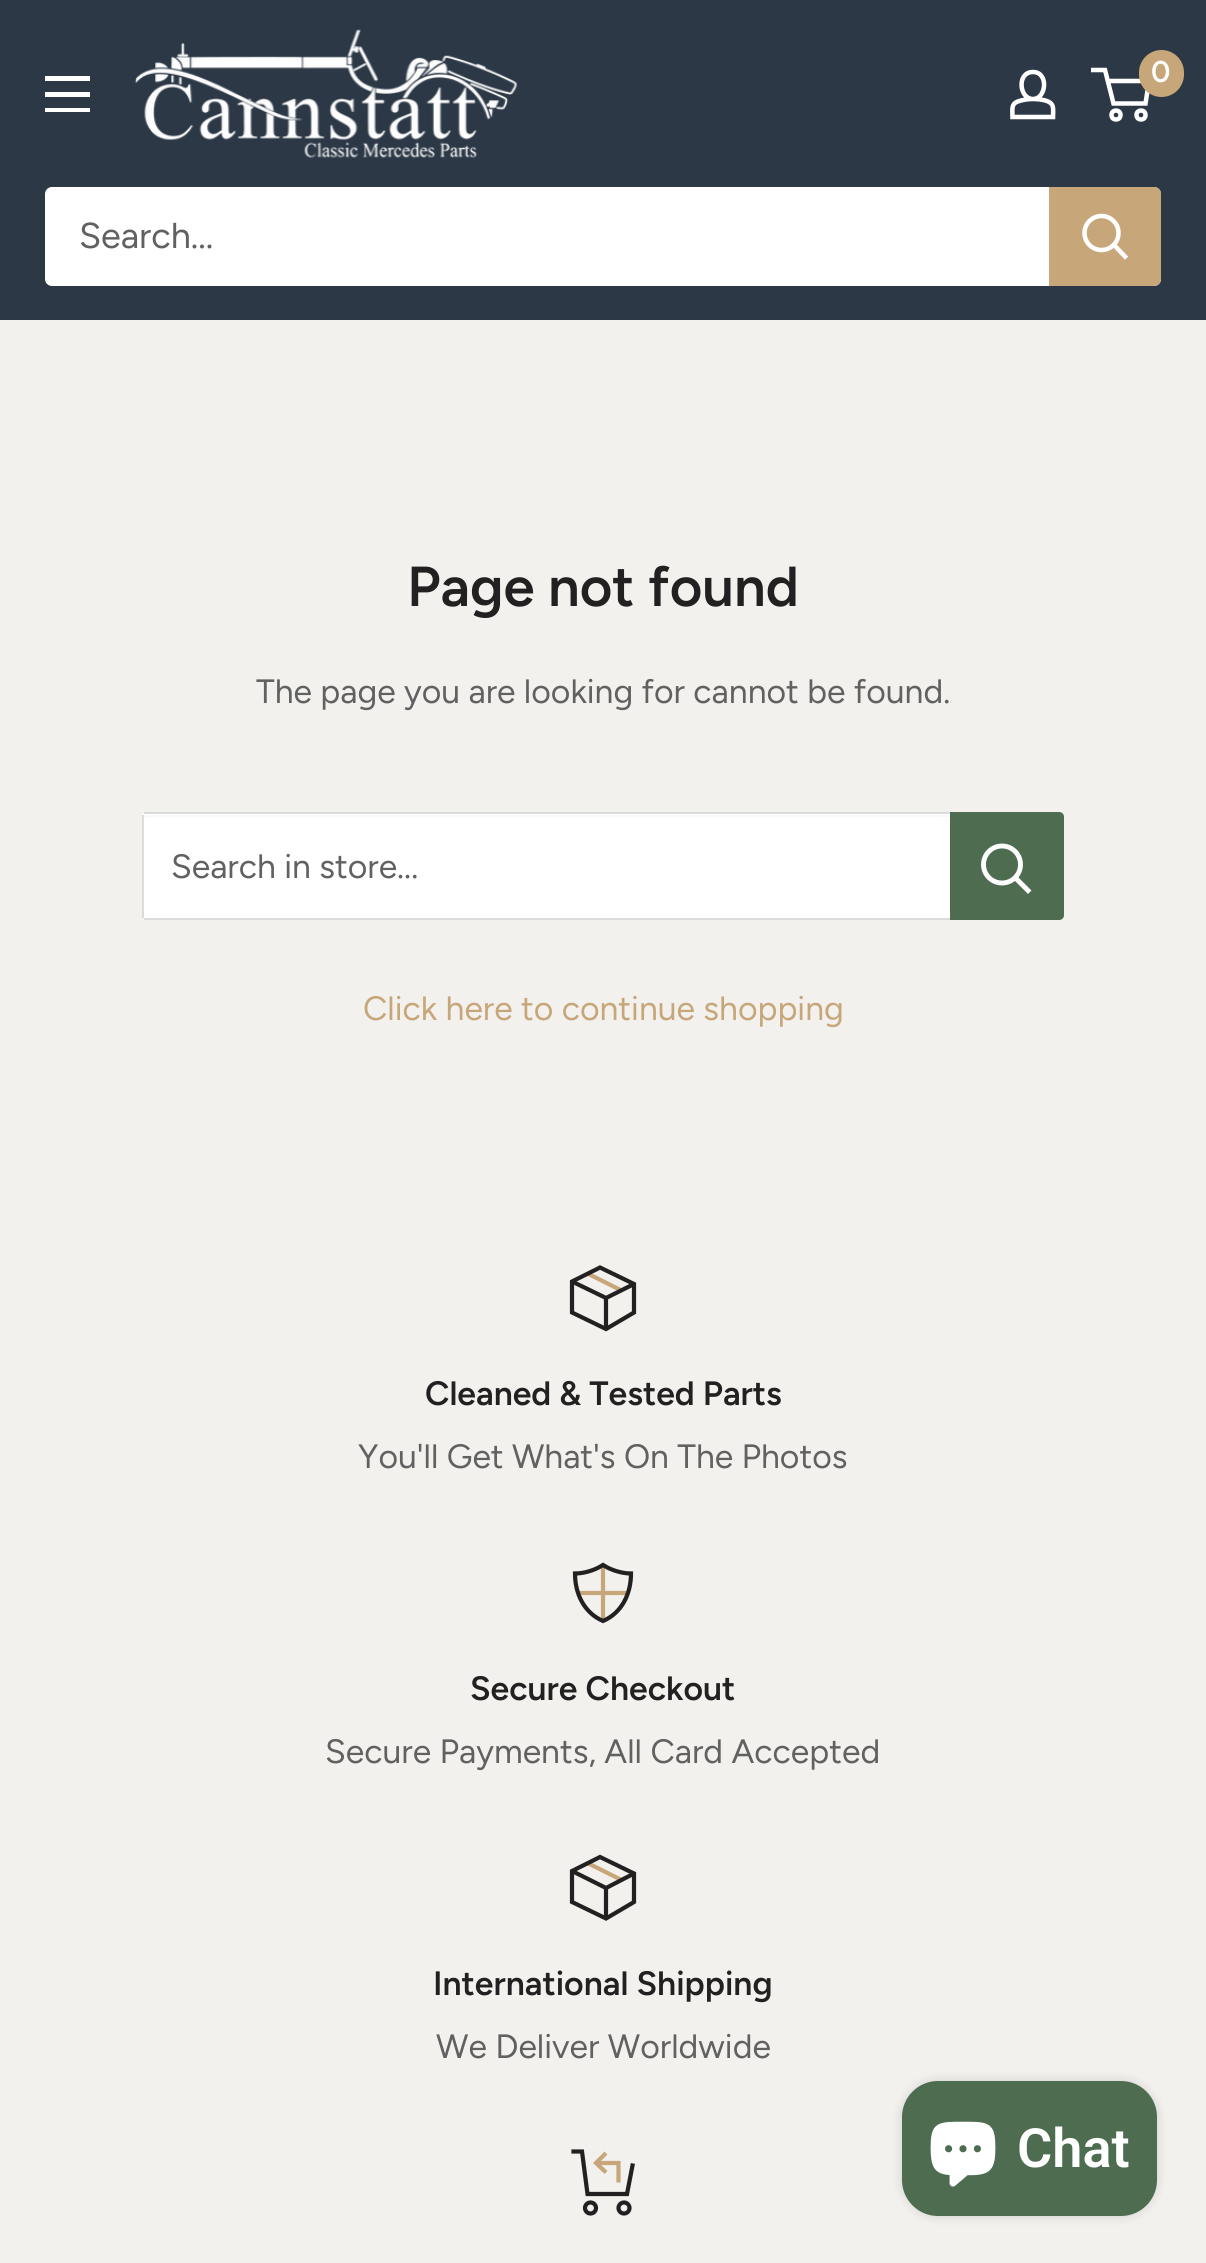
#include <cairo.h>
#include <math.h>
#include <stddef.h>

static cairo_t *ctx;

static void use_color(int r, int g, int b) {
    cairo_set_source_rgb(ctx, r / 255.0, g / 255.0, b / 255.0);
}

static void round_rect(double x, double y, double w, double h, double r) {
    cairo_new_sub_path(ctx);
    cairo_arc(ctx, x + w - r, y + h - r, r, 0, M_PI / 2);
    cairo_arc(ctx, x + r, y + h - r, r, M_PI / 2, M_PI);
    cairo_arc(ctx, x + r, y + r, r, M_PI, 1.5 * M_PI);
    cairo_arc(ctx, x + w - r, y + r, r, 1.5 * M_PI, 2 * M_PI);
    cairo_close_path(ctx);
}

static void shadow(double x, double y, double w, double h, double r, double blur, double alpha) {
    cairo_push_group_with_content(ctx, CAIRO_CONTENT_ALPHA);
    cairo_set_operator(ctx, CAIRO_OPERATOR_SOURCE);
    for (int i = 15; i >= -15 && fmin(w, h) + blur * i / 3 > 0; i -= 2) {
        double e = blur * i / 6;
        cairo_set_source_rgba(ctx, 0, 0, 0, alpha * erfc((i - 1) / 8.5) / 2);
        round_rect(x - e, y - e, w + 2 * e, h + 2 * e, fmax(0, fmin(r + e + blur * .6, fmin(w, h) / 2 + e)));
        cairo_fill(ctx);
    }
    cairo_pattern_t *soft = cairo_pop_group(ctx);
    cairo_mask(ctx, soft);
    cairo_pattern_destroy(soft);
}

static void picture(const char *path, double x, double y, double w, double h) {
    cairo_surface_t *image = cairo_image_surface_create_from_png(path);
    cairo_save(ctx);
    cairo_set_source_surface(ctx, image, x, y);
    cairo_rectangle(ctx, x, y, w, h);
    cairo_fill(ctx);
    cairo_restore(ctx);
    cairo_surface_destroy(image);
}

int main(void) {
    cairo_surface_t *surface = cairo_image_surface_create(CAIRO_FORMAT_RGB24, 1206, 2263);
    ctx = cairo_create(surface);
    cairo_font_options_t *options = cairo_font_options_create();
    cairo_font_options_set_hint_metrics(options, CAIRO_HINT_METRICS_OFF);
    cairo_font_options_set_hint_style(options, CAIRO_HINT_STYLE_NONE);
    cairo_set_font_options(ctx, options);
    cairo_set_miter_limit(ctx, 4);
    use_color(242, 241, 238);
    cairo_paint(ctx);
    use_color(44, 56, 70);
    cairo_rectangle(ctx, 0, 0, 1206, 320);
    cairo_fill(ctx);
    picture("img1.png", 135, 29, 383, 129);
    cairo_new_path(ctx);
    cairo_move_to(ctx, 1033, 99);
    cairo_curve_to(ctx, 1037, 99, 1041, 99.5, 1045.5, 100.5);
    cairo_curve_to(ctx, 1055, 103.5, 1053, 108.5, 1053, 117);
    cairo_line_to(ctx, 1012.5, 117);
    cairo_curve_to(ctx, 1012.5, 108, 1010.5, 103, 1021, 100.5);
    cairo_curve_to(ctx, 1025, 99.5, 1029, 99, 1033, 99);
    cairo_close_path(ctx);
    cairo_move_to(ctx, 1033, 99);
    cairo_curve_to(ctx, 1019, 99, 1016.5, 72, 1033, 72);
    cairo_curve_to(ctx, 1049, 72, 1046.5, 99, 1033, 99);
    cairo_close_path(ctx);
    use_color(255, 255, 255);
    cairo_set_line_width(ctx, 4.5);
    cairo_stroke(ctx);
    cairo_arc(ctx, 1116, 115, 4.5, 0, 2 * M_PI);
    cairo_stroke(ctx);
    cairo_arc(ctx, 1141, 115, 4.5, 0, 2 * M_PI);
    cairo_stroke(ctx);
    cairo_new_path(ctx);
    cairo_move_to(ctx, 1107.5, 81);
    cairo_line_to(ctx, 1149, 81);
    cairo_line_to(ctx, 1145.5, 103.5);
    cairo_line_to(ctx, 1113.5, 103.5);
    cairo_line_to(ctx, 1105, 70);
    cairo_line_to(ctx, 1091, 70);
    cairo_stroke(ctx);
    use_color(199, 167, 121);
    round_rect(1139, 50, 45, 47, 22.5);
    cairo_fill(ctx);
    cairo_select_font_face(ctx, "Figtree SemiBold", CAIRO_FONT_SLANT_NORMAL, CAIRO_FONT_WEIGHT_NORMAL);
    cairo_set_font_size(ctx, 30);
    use_color(255, 255, 255);
    cairo_move_to(ctx, 1151, 82);
    cairo_show_text(ctx, "0");
    cairo_set_fill_rule(ctx, CAIRO_FILL_RULE_EVEN_ODD);
    cairo_new_path(ctx);
    cairo_move_to(ctx, 45, 108);
    cairo_line_to(ctx, 90, 108);
    cairo_line_to(ctx, 90, 112);
    cairo_line_to(ctx, 45, 112);
    cairo_close_path(ctx);
    cairo_move_to(ctx, 45, 76);
    cairo_line_to(ctx, 90, 76);
    cairo_line_to(ctx, 90, 81);
    cairo_line_to(ctx, 45, 81);
    cairo_close_path(ctx);
    cairo_move_to(ctx, 45, 92);
    cairo_line_to(ctx, 90, 92);
    cairo_line_to(ctx, 90, 97);
    cairo_line_to(ctx, 45, 97);
    cairo_close_path(ctx);
    cairo_fill(ctx);
    round_rect(45, 187, 1116, 99, 7);
    cairo_fill(ctx);
    cairo_select_font_face(ctx, "Figtree", CAIRO_FONT_SLANT_NORMAL, CAIRO_FONT_WEIGHT_NORMAL);
    cairo_set_font_size(ctx, 36);
    use_color(97, 97, 97);
    cairo_move_to(ctx, 79, 248);
    cairo_show_text(ctx, "Search...");
    use_color(199, 167, 121);
    cairo_new_path(ctx);
    cairo_move_to(ctx, 1049, 187);
    cairo_line_to(ctx, 1154, 187);
    cairo_curve_to(ctx, 1158, 187, 1161, 190, 1161, 194);
    cairo_line_to(ctx, 1161, 279);
    cairo_curve_to(ctx, 1161, 283, 1158, 286, 1154, 286);
    cairo_line_to(ctx, 1049, 286);
    cairo_close_path(ctx);
    cairo_fill(ctx);
    cairo_new_path(ctx);
    cairo_move_to(ctx, 1125, 256.5);
    cairo_line_to(ctx, 1114, 245);
    use_color(255, 255, 255);
    cairo_set_line_cap(ctx, CAIRO_LINE_CAP_SQUARE);
    cairo_stroke(ctx);
    cairo_arc(ctx, 1101.5, 233, 17, 0, 2 * M_PI);
    cairo_set_line_cap(ctx, CAIRO_LINE_CAP_BUTT);
    cairo_stroke(ctx);
    cairo_select_font_face(ctx, "Figtree SemiBold", CAIRO_FONT_SLANT_NORMAL, CAIRO_FONT_WEIGHT_NORMAL);
    cairo_set_font_size(ctx, 56.25);
    use_color(34, 32, 33);
    cairo_move_to(ctx, 407, 606);
    cairo_show_text(ctx, "Page not found");
    cairo_select_font_face(ctx, "Figtree", CAIRO_FONT_SLANT_NORMAL, CAIRO_FONT_WEIGHT_NORMAL);
    cairo_set_font_size(ctx, 33.75);
    use_color(97, 97, 97);
    cairo_move_to(ctx, 256, 703);
    cairo_show_text(ctx, "The page you are looking for cannot be found.");
    use_color(255, 255, 255);
    cairo_new_path(ctx);
    cairo_move_to(ctx, 147, 812);
    cairo_line_to(ctx, 950, 812);
    cairo_line_to(ctx, 950, 920);
    cairo_line_to(ctx, 147, 920);
    cairo_curve_to(ctx, 144, 920, 142, 918, 142, 915);
    cairo_line_to(ctx, 142, 817);
    cairo_curve_to(ctx, 142, 814, 144, 812, 147, 812);
    cairo_close_path(ctx);
    cairo_fill(ctx);
    use_color(249, 249, 249);
    cairo_set_fill_rule(ctx, CAIRO_FILL_RULE_WINDING);
    cairo_new_path(ctx);
    cairo_move_to(ctx, 146, 817);
    cairo_line_to(ctx, 950, 817);
    cairo_line_to(ctx, 950, 815);
    cairo_line_to(ctx, 146, 815);
    cairo_line_to(ctx, 144, 816);
    cairo_line_to(ctx, 144, 819);
    cairo_curve_to(ctx, 144, 818, 145, 817, 146, 817);
    cairo_close_path(ctx);
    cairo_fill(ctx);
    use_color(219, 219, 219);
    cairo_rectangle(ctx, 144, 812, 806, 2);
    cairo_fill(ctx);
    cairo_rectangle(ctx, 144, 918, 806, 2);
    cairo_fill(ctx);
    cairo_rectangle(ctx, 142, 815, 2, 103);
    cairo_fill(ctx);
    use_color(97, 97, 97);
    cairo_move_to(ctx, 171, 878);
    cairo_show_text(ctx, "Search in store...");
    use_color(77, 108, 80);
    cairo_new_path(ctx);
    cairo_move_to(ctx, 950, 812);
    cairo_line_to(ctx, 1059, 812);
    cairo_curve_to(ctx, 1062, 812, 1064, 814, 1064, 817);
    cairo_line_to(ctx, 1064, 915);
    cairo_curve_to(ctx, 1064, 918, 1062, 920, 1059, 920);
    cairo_line_to(ctx, 950, 920);
    cairo_close_path(ctx);
    cairo_fill(ctx);
    cairo_new_path(ctx);
    cairo_move_to(ctx, 1028, 890.5);
    cairo_line_to(ctx, 1015.5, 878);
    use_color(255, 255, 255);
    cairo_set_line_width(ctx, 4.9);
    cairo_set_line_cap(ctx, CAIRO_LINE_CAP_SQUARE);
    cairo_stroke(ctx);
    cairo_arc(ctx, 1002, 864.5, 18.5, 0, 2 * M_PI);
    cairo_set_line_cap(ctx, CAIRO_LINE_CAP_BUTT);
    cairo_stroke(ctx);
    use_color(199, 167, 121);
    cairo_move_to(ctx, 363, 1020);
    cairo_show_text(ctx, "Click here to continue shopping");
    cairo_new_path(ctx);
    cairo_move_to(ctx, 587.5, 1273.5);
    cairo_line_to(ctx, 621.5, 1290.5);
    cairo_set_line_width(ctx, 4.2);
    cairo_stroke(ctx);
    cairo_new_path(ctx);
    cairo_move_to(ctx, 634, 1284);
    cairo_line_to(ctx, 606, 1298);
    cairo_line_to(ctx, 572, 1281.5);
    cairo_move_to(ctx, 606, 1298);
    cairo_line_to(ctx, 606, 1329);
    use_color(34, 32, 33);
    cairo_stroke(ctx);
    cairo_new_path(ctx);
    cairo_move_to(ctx, 634, 1284);
    cairo_line_to(ctx, 634, 1312.5);
    cairo_line_to(ctx, 606, 1329);
    cairo_line_to(ctx, 572, 1312.5);
    cairo_line_to(ctx, 572, 1281.5);
    cairo_line_to(ctx, 600, 1267.5);
    cairo_close_path(ctx);
    cairo_set_line_cap(ctx, CAIRO_LINE_CAP_SQUARE);
    cairo_stroke(ctx);
    cairo_select_font_face(ctx, "Figtree SemiBold", CAIRO_FONT_SLANT_NORMAL, CAIRO_FONT_WEIGHT_NORMAL);
    cairo_move_to(ctx, 425, 1405);
    cairo_show_text(ctx, "Cleaned & Tested Parts");
    cairo_select_font_face(ctx, "Figtree", CAIRO_FONT_SLANT_NORMAL, CAIRO_FONT_WEIGHT_NORMAL);
    use_color(97, 97, 97);
    cairo_move_to(ctx, 358, 1468);
    cairo_show_text(ctx, "You'll Get What's On The Photos");
    cairo_new_path(ctx);
    cairo_move_to(ctx, 603, 1565);
    cairo_line_to(ctx, 603, 1621);
    cairo_move_to(ctx, 628, 1593);
    cairo_line_to(ctx, 578, 1593);
    use_color(199, 167, 121);
    cairo_set_line_cap(ctx, CAIRO_LINE_CAP_BUTT);
    cairo_stroke(ctx);
    cairo_new_path(ctx);
    cairo_move_to(ctx, 603, 1565);
    cairo_curve_to(ctx, 594.5, 1570.5, 583.5, 1573.5, 575, 1573.5);
    cairo_curve_to(ctx, 575, 1593, 583.5, 1612.5, 603, 1621);
    cairo_curve_to(ctx, 622.5, 1612.5, 631, 1593, 631, 1573.5);
    cairo_curve_to(ctx, 622.5, 1573.5, 611.5, 1570.5, 603, 1565);
    cairo_close_path(ctx);
    use_color(34, 32, 33);
    cairo_set_line_cap(ctx, CAIRO_LINE_CAP_SQUARE);
    cairo_stroke(ctx);
    cairo_select_font_face(ctx, "Figtree SemiBold", CAIRO_FONT_SLANT_NORMAL, CAIRO_FONT_WEIGHT_NORMAL);
    cairo_move_to(ctx, 470, 1700);
    cairo_show_text(ctx, "Secure Checkout");
    cairo_select_font_face(ctx, "Figtree", CAIRO_FONT_SLANT_NORMAL, CAIRO_FONT_WEIGHT_NORMAL);
    use_color(97, 97, 97);
    cairo_move_to(ctx, 325, 1763);
    cairo_show_text(ctx, "Secure Payments, All Card Accepted");
    cairo_new_path(ctx);
    cairo_move_to(ctx, 587.5, 1863);
    cairo_line_to(ctx, 621.5, 1880);
    use_color(199, 167, 121);
    cairo_set_line_cap(ctx, CAIRO_LINE_CAP_BUTT);
    cairo_stroke(ctx);
    cairo_new_path(ctx);
    cairo_move_to(ctx, 634, 1873.5);
    cairo_line_to(ctx, 606, 1888);
    cairo_line_to(ctx, 572, 1871);
    cairo_move_to(ctx, 606, 1888);
    cairo_line_to(ctx, 606, 1918.5);
    use_color(34, 32, 33);
    cairo_stroke(ctx);
    cairo_new_path(ctx);
    cairo_move_to(ctx, 634, 1873.5);
    cairo_line_to(ctx, 634, 1902);
    cairo_line_to(ctx, 606, 1918.5);
    cairo_line_to(ctx, 572, 1902);
    cairo_line_to(ctx, 572, 1871);
    cairo_line_to(ctx, 600, 1857);
    cairo_close_path(ctx);
    cairo_set_line_cap(ctx, CAIRO_LINE_CAP_SQUARE);
    cairo_stroke(ctx);
    cairo_select_font_face(ctx, "Figtree SemiBold", CAIRO_FONT_SLANT_NORMAL, CAIRO_FONT_WEIGHT_NORMAL);
    cairo_move_to(ctx, 433, 1995);
    cairo_show_text(ctx, "International Shipping");
    cairo_select_font_face(ctx, "Figtree", CAIRO_FONT_SLANT_NORMAL, CAIRO_FONT_WEIGHT_NORMAL);
    use_color(97, 97, 97);
    cairo_move_to(ctx, 436, 2058);
    cairo_show_text(ctx, "We Deliver Worldwide");
    cairo_new_path(ctx);
    cairo_move_to(ctx, 596, 2163);
    cairo_line_to(ctx, 618.5, 2163);
    cairo_line_to(ctx, 618.5, 2182.5);
    use_color(199, 167, 121);
    cairo_set_line_cap(ctx, CAIRO_LINE_CAP_BUTT);
    cairo_stroke(ctx);
    cairo_new_path(ctx);
    cairo_move_to(ctx, 604.5, 2171);
    cairo_line_to(ctx, 596, 2163);
    cairo_line_to(ctx, 604.5, 2154.5);
    cairo_set_line_cap(ctx, CAIRO_LINE_CAP_SQUARE);
    cairo_stroke(ctx);
    cairo_new_path(ctx);
    cairo_move_to(ctx, 632.5, 2165.5);
    cairo_line_to(ctx, 627, 2194);
    cairo_line_to(ctx, 587.5, 2194);
    cairo_line_to(ctx, 582, 2151.5);
    cairo_line_to(ctx, 573.5, 2151.5);
    use_color(34, 32, 33);
    cairo_stroke(ctx);
    cairo_arc(ctx, 590.5, 2208, 5.5, 0, 2 * M_PI);
    cairo_set_line_cap(ctx, CAIRO_LINE_CAP_BUTT);
    cairo_stroke(ctx);
    cairo_arc(ctx, 624, 2208, 5.5, 0, 2 * M_PI);
    cairo_stroke(ctx);
    use_color(0, 0, 0);
    shadow(902, 2081, 255, 135, 36, 5.5, 0.15);
    use_color(77, 108, 80);
    round_rect(902, 2081, 255, 135, 36);
    cairo_fill(ctx);
    picture("img2.png", 930, 2121, 66, 66);
    cairo_select_font_face(ctx, "Roboto SemiBold", CAIRO_FONT_SLANT_NORMAL, CAIRO_FONT_WEIGHT_NORMAL);
    cairo_set_font_size(ctx, 54);
    use_color(255, 255, 255);
    cairo_move_to(ctx, 1017, 2167);
    cairo_show_text(ctx, "Chat");
    cairo_surface_write_to_png(surface, "result.png");
    cairo_font_options_destroy(options);
    cairo_destroy(ctx);
    cairo_surface_destroy(surface);
    return 0;
}
